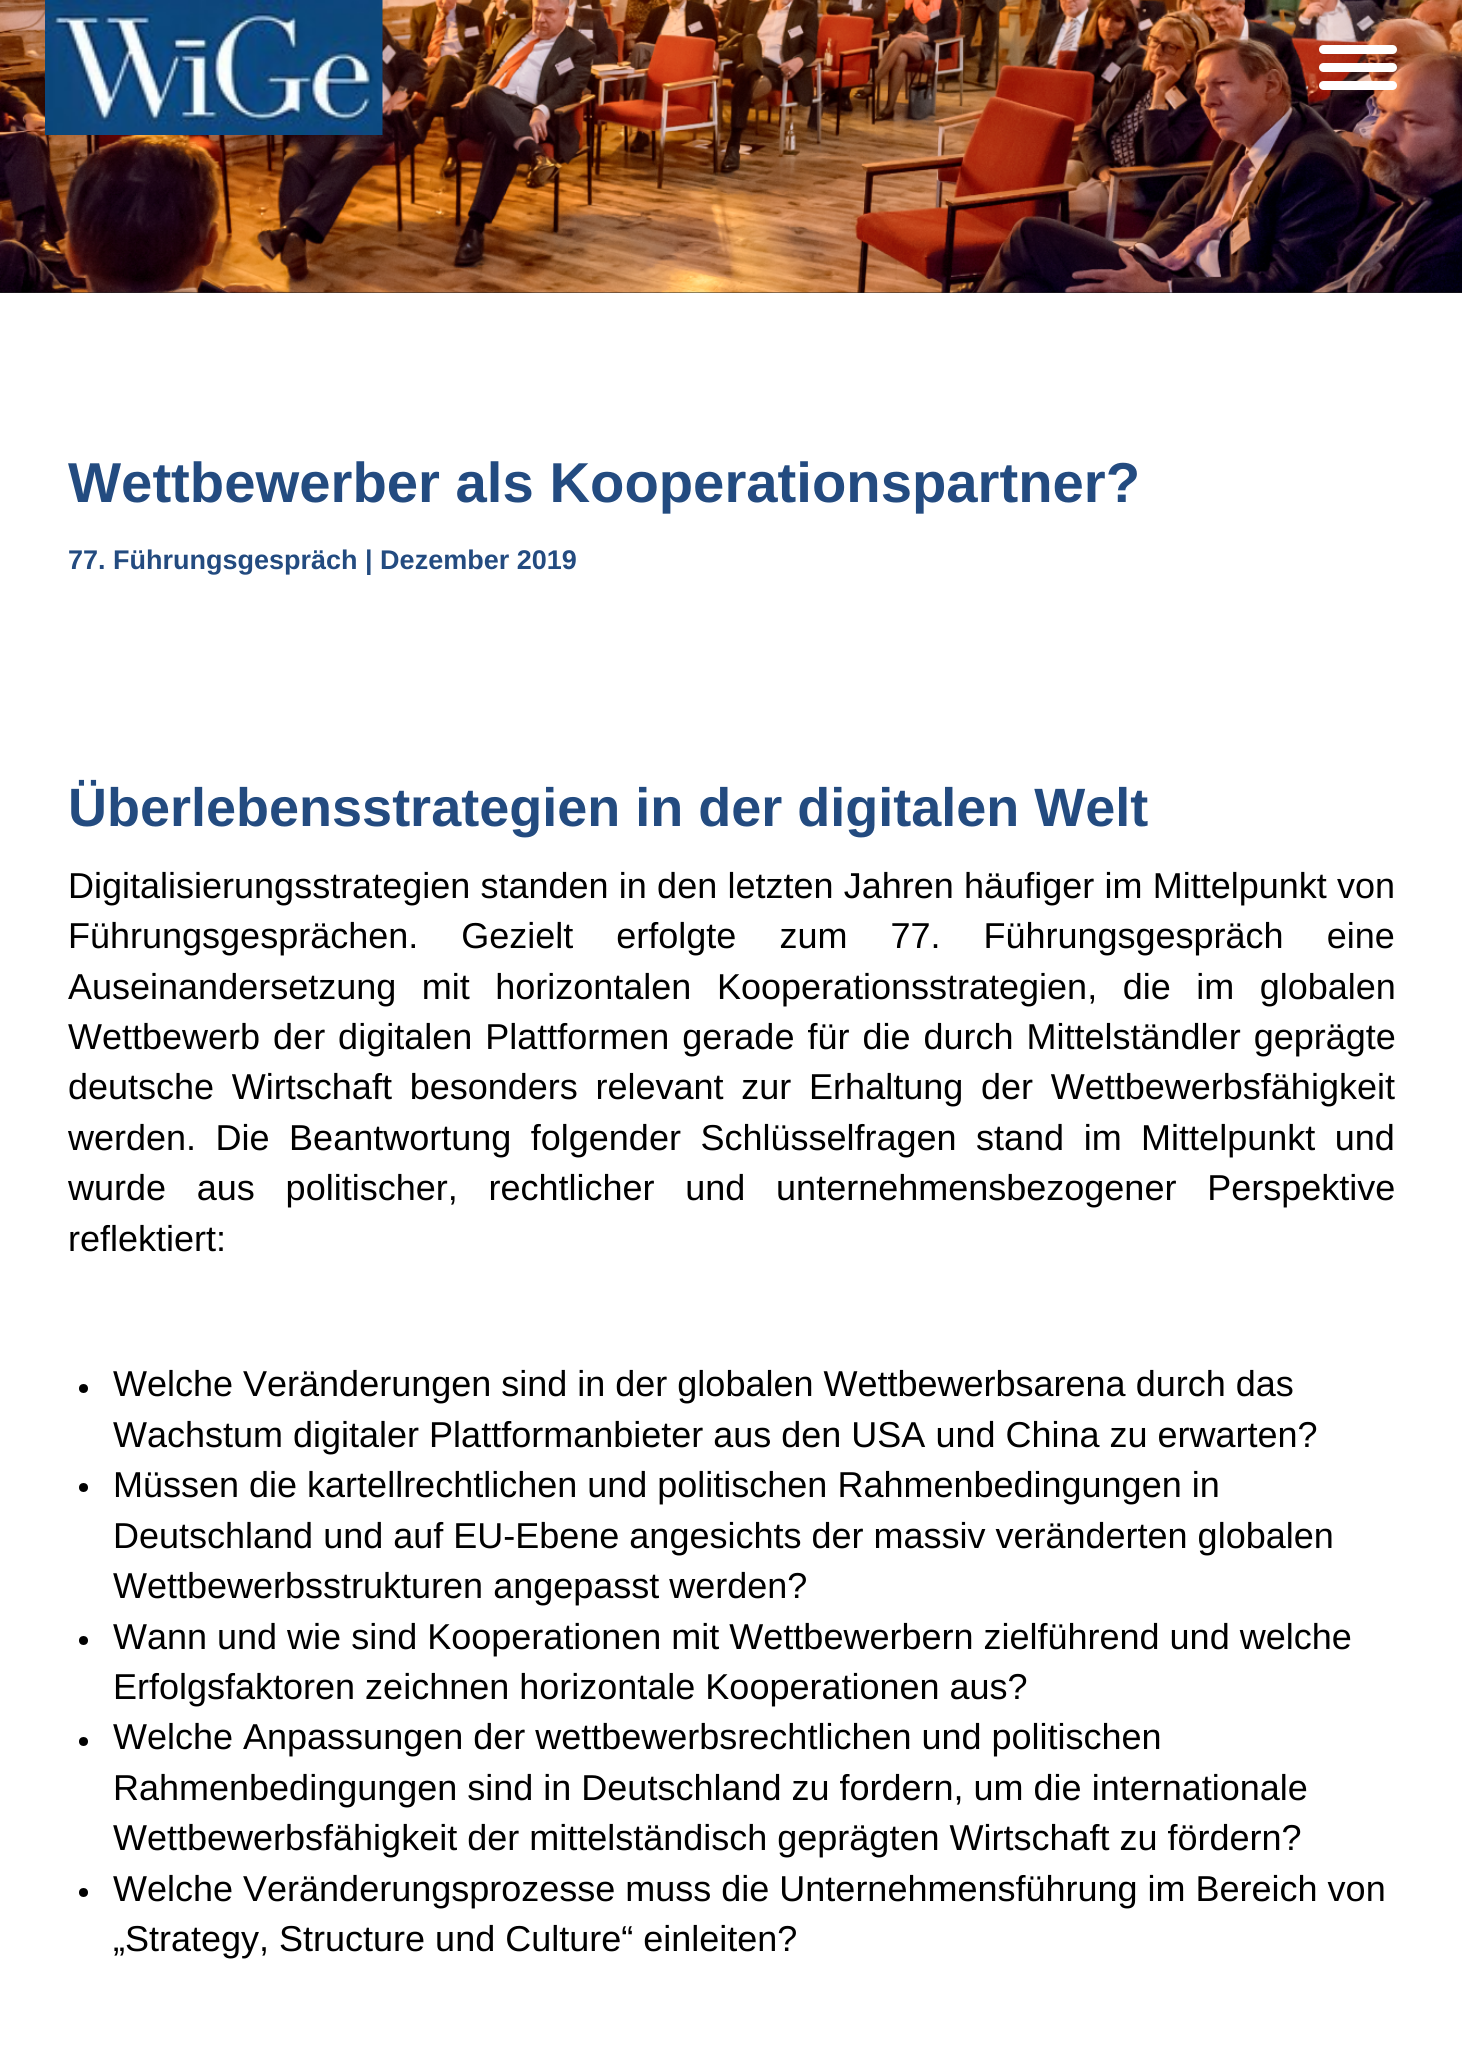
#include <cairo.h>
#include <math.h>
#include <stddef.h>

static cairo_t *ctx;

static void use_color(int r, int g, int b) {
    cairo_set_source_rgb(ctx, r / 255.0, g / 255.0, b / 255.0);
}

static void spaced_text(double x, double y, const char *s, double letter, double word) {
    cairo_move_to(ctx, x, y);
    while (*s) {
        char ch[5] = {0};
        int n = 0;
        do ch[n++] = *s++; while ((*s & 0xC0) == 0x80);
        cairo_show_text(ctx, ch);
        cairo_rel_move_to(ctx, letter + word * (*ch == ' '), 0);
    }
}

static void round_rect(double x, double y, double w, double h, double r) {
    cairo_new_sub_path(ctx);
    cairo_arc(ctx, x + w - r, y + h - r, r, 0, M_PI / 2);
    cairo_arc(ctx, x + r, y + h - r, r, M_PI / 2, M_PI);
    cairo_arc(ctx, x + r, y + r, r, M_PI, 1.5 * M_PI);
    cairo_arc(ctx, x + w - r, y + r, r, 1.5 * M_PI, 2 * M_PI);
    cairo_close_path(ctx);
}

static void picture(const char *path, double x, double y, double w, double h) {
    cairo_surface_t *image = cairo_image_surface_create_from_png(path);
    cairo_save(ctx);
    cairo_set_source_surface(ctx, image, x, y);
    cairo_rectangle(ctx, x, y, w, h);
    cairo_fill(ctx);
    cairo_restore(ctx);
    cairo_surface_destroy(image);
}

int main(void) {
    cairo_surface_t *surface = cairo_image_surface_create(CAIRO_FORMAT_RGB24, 1462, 2063);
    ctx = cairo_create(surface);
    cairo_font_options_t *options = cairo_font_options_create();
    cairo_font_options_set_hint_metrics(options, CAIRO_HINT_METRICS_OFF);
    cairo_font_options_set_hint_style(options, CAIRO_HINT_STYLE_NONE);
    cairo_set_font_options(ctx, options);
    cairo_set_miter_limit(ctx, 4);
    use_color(255, 255, 255);
    cairo_paint(ctx);
    use_color(34, 34, 34);
    cairo_rectangle(ctx, 0, 292, 1462, 1);
    cairo_fill(ctx);
    picture("img1.png", 0, 0, 1462, 293);
    picture("img2.png", 45, 0, 338, 135);
    use_color(255, 255, 255);
    round_rect(1319, 45, 78, 9, 4.5);
    cairo_fill(ctx);
    round_rect(1319, 63, 78, 9, 4.5);
    cairo_fill(ctx);
    round_rect(1319, 81, 78, 9, 4.5);
    cairo_fill(ctx);
    cairo_select_font_face(ctx, "Liberation Sans", CAIRO_FONT_SLANT_NORMAL, CAIRO_FONT_WEIGHT_BOLD);
    cairo_set_font_size(ctx, 56.25);
    use_color(35, 75, 128);
    cairo_move_to(ctx, 68, 502);
    cairo_show_text(ctx, "Wettbewerber als Kooperationspartner?");
    cairo_set_font_size(ctx, 27);
    cairo_move_to(ctx, 68, 569);
    cairo_show_text(ctx, "77. Führungsgespräch | Dezember 2019");
    cairo_set_font_size(ctx, 54);
    cairo_move_to(ctx, 68, 826);
    cairo_show_text(ctx, "Überlebensstrategien in der digitalen Welt");
    cairo_select_font_face(ctx, "Liberation Sans", CAIRO_FONT_SLANT_NORMAL, CAIRO_FONT_WEIGHT_NORMAL);
    cairo_set_font_size(ctx, 36);
    use_color(0, 0, 0);
    spaced_text(68, 898, "Digitalisierungsstrategien standen in den letzten Jahren häufiger im Mittelpunkt von", 0, 0.25);
    spaced_text(68, 948, "Führungsgesprächen. Gezielt erfolgte zum 77. Führungsgespräch eine", 0, 33);
    spaced_text(68, 999, "Auseinandersetzung mit horizontalen Kooperationsstrategien, die im globalen", 0, 15.5);
    spaced_text(68, 1049, "Wettbewerb der digitalen Plattformen gerade für die durch Mittelständler geprägte", 0, 3);
    spaced_text(68, 1099, "deutsche Wirtschaft besonders relevant zur Erhaltung der Wettbewerbsfähigkeit", 0, 7.75);
    spaced_text(68, 1150, "werden. Die Beantwortung folgender Schlüsselfragen stand im Mittelpunkt und", 0, 9.5);
    spaced_text(68, 1200, "wurde aus politischer, rechtlicher und unternehmensbezogener Perspektive", 0, 20.75);
    cairo_move_to(ctx, 68, 1251);
    cairo_show_text(ctx, "reflektiert:");
    cairo_new_path(ctx);
    cairo_arc(ctx, 83.5, 1388.5, 4.5, 0, 2 * M_PI);
    cairo_fill(ctx);
    cairo_move_to(ctx, 113, 1396);
    cairo_show_text(ctx, "Welche Veränderungen sind in der globalen Wettbewerbsarena durch das");
    cairo_move_to(ctx, 113, 1447);
    cairo_show_text(ctx, "Wachstum digitaler Plattformanbieter aus den USA und China zu erwarten?");
    cairo_new_path(ctx);
    cairo_arc(ctx, 83.5, 1487.5, 4.5, 0, 2 * M_PI);
    cairo_fill(ctx);
    cairo_move_to(ctx, 113, 1497);
    cairo_show_text(ctx, "Müssen die kartellrechtlichen und politischen Rahmenbedingungen in");
    cairo_move_to(ctx, 113, 1548);
    cairo_show_text(ctx, "Deutschland und auf EU-Ebene angesichts der massiv veränderten globalen");
    cairo_move_to(ctx, 113, 1598);
    cairo_show_text(ctx, "Wettbewerbsstrukturen angepasst werden?");
    cairo_new_path(ctx);
    cairo_arc(ctx, 83.5, 1640.5, 4.5, 0, 2 * M_PI);
    cairo_fill(ctx);
    cairo_move_to(ctx, 113, 1649);
    cairo_show_text(ctx, "Wann und wie sind Kooperationen mit Wettbewerbern zielführend und welche");
    cairo_move_to(ctx, 113, 1699);
    cairo_show_text(ctx, "Erfolgsfaktoren zeichnen horizontale Kooperationen aus?");
    cairo_new_path(ctx);
    cairo_arc(ctx, 83.5, 1741.5, 4.5, 0, 2 * M_PI);
    cairo_fill(ctx);
    cairo_move_to(ctx, 113, 1749);
    cairo_show_text(ctx, "Welche Anpassungen der wettbewerbsrechtlichen und politischen");
    cairo_move_to(ctx, 113, 1800);
    cairo_show_text(ctx, "Rahmenbedingungen sind in Deutschland zu fordern, um die internationale");
    cairo_move_to(ctx, 113, 1850);
    cairo_show_text(ctx, "Wettbewerbsfähigkeit der mittelständisch geprägten Wirtschaft zu fördern?");
    cairo_new_path(ctx);
    cairo_arc(ctx, 83.5, 1892.5, 4.5, 0, 2 * M_PI);
    cairo_fill(ctx);
    cairo_move_to(ctx, 113, 1901);
    cairo_show_text(ctx, "Welche Veränderungsprozesse muss die Unternehmensführung im Bereich von");
    cairo_move_to(ctx, 113, 1951);
    cairo_show_text(ctx, "„Strategy, Structure und Culture“ einleiten?");
    cairo_surface_write_to_png(surface, "result.png");
    cairo_font_options_destroy(options);
    cairo_destroy(ctx);
    cairo_surface_destroy(surface);
    return 0;
}
